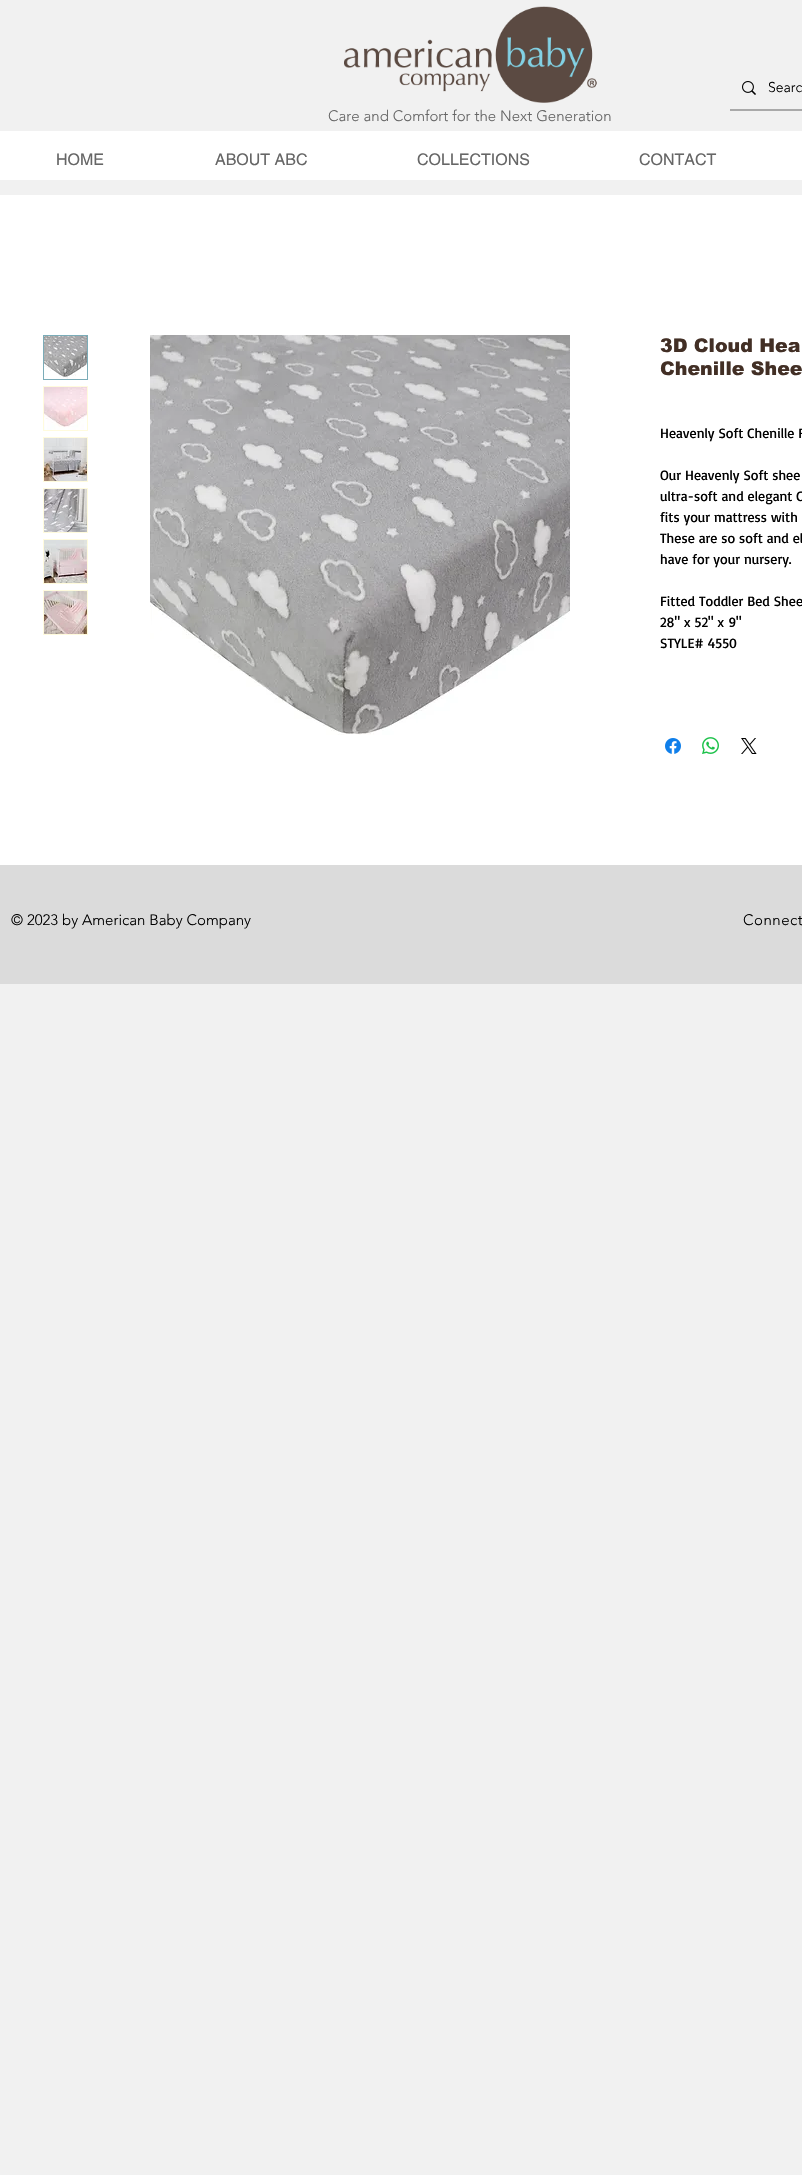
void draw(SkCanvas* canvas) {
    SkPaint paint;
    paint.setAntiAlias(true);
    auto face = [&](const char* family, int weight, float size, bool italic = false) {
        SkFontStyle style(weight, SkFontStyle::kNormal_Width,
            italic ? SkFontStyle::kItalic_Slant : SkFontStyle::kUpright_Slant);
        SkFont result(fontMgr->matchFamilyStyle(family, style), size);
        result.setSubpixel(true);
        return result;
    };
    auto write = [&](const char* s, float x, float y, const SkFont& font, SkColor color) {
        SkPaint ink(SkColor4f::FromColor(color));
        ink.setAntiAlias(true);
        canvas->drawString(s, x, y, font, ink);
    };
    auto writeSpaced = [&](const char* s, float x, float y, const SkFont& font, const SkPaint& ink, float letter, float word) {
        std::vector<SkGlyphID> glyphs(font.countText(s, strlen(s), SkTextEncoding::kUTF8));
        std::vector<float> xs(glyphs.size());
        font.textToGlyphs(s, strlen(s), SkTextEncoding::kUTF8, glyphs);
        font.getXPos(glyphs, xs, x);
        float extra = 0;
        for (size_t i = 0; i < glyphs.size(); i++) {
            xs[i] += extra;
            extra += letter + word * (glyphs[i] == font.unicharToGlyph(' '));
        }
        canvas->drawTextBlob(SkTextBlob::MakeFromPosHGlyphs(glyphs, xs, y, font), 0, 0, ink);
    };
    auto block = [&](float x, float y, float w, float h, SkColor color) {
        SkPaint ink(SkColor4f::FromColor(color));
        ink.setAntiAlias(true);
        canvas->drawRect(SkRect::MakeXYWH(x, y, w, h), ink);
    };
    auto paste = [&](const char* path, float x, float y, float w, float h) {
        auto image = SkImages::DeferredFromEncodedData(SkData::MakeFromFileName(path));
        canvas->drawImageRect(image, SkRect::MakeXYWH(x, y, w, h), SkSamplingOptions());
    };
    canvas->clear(SkColorSetRGB(241, 241, 241));
    paste("pic1.png", 344, 6, 253, 97);
    block(730, 109, 72, 2, SkColorSetRGB(169, 169, 169));
    paste("pic2.png", 742, 81, 14, 14);
    auto kFont1 = face("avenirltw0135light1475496", 300, 14);
    write("Searc", 768, 92, kFont1, SK_ColorBLACK);
    auto kFont2 = face("avenirltw0135light1475496", 300, 15);
    write("Care and Comfort for the Next Generation", 328, 121, kFont2, SkColorSetRGB(102, 102, 102));
    block(0, 131, 802, 49, SK_ColorWHITE);
    auto kFont3 = face("helvetica", 400, 16);
    write("HOME", 56, 165, kFont3, SkColorSetRGB(102, 102, 102));
    write("ABOUT ABC", 215, 165, kFont3, SkColorSetRGB(102, 102, 102));
    write("COLLECTIONS", 417, 165, kFont3, SkColorSetRGB(102, 102, 102));
    write("CONTACT", 639, 165, kFont3, SkColorSetRGB(102, 102, 102));
    block(0, 195, 802, 670, SK_ColorWHITE);
    paint.setStyle(SkPaint::kStroke_Style);
    paint.setStrokeWidth(1);
    paint.setColor(SkColorSetRGB(123, 172, 184));
    canvas->drawRect(SkRect::MakeXYWH(43.5f, 335.5f, 44, 44), paint);
    paste("pic3.png", 44, 336, 43, 43);
    paint.setColor(SkColorSetRGB(255, 251, 221));
    canvas->drawRect(SkRect::MakeXYWH(43.5f, 386.5f, 44, 44), paint);
    paste("pic4.png", 44, 387, 43, 43);
    canvas->drawRect(SkRect::MakeXYWH(43.5f, 437.5f, 44, 44), paint);
    paste("pic5.png", 44, 438, 43, 43);
    canvas->drawRect(SkRect::MakeXYWH(43.5f, 488.5f, 44, 44), paint);
    paste("pic6.png", 44, 489, 43, 43);
    canvas->drawRect(SkRect::MakeXYWH(43.5f, 539.5f, 44, 44), paint);
    paste("pic7.png", 44, 540, 43, 43);
    canvas->drawRect(SkRect::MakeXYWH(43.5f, 590.5f, 44, 44), paint);
    paste("pic8.png", 44, 591, 43, 43);
    paste("pic9.png", 150, 335, 420, 400);
    auto kFont4 = face("arial", 900, 19);
    write("3D Cloud Hea", 660, 352, kFont4, SkColorSetRGB(66, 47, 37));
    write("Chenille Shee", 660, 375, kFont4, SkColorSetRGB(66, 47, 37));
    auto kFont5 = face("Basic", 400, 14);
    write("Heavenly Soft Chenille F", 660, 438, kFont5, SK_ColorBLACK);
    write("Our Heavenly Soft shee", 660, 480, kFont5, SK_ColorBLACK);
    write("ultra-soft and elegant C", 660, 501, kFont5, SK_ColorBLACK);
    write("fits your mattress with", 660, 522, kFont5, SK_ColorBLACK);
    write("These are so soft and el", 660, 543, kFont5, SK_ColorBLACK);
    write("have for your nursery.", 660, 564, kFont5, SK_ColorBLACK);
    write("Fitted Toddler Bed Shee", 660, 606, kFont5, SK_ColorBLACK);
    write("28\" x 52\" x 9\"", 660, 627, kFont5, SK_ColorBLACK);
    write("STYLE# 4550", 660, 648, kFont5, SK_ColorBLACK);
    paste("pic10.png", 665, 738, 16, 16);
    paste("pic11.png", 702, 737, 17, 17);
    paste("pic12.png", 741, 738, 16, 16);
    block(0, 865, 802, 119, SkColorSetRGB(219, 219, 219));
    write("© 2023 by American Baby Company", 11, 925, kFont2, SK_ColorBLACK);
    paint.setStyle(SkPaint::kFill_Style);
    paint.setColor(SK_ColorBLACK);
    writeSpaced("Connect", 743, 925, kFont2, paint, 0.5f, 0);
}
